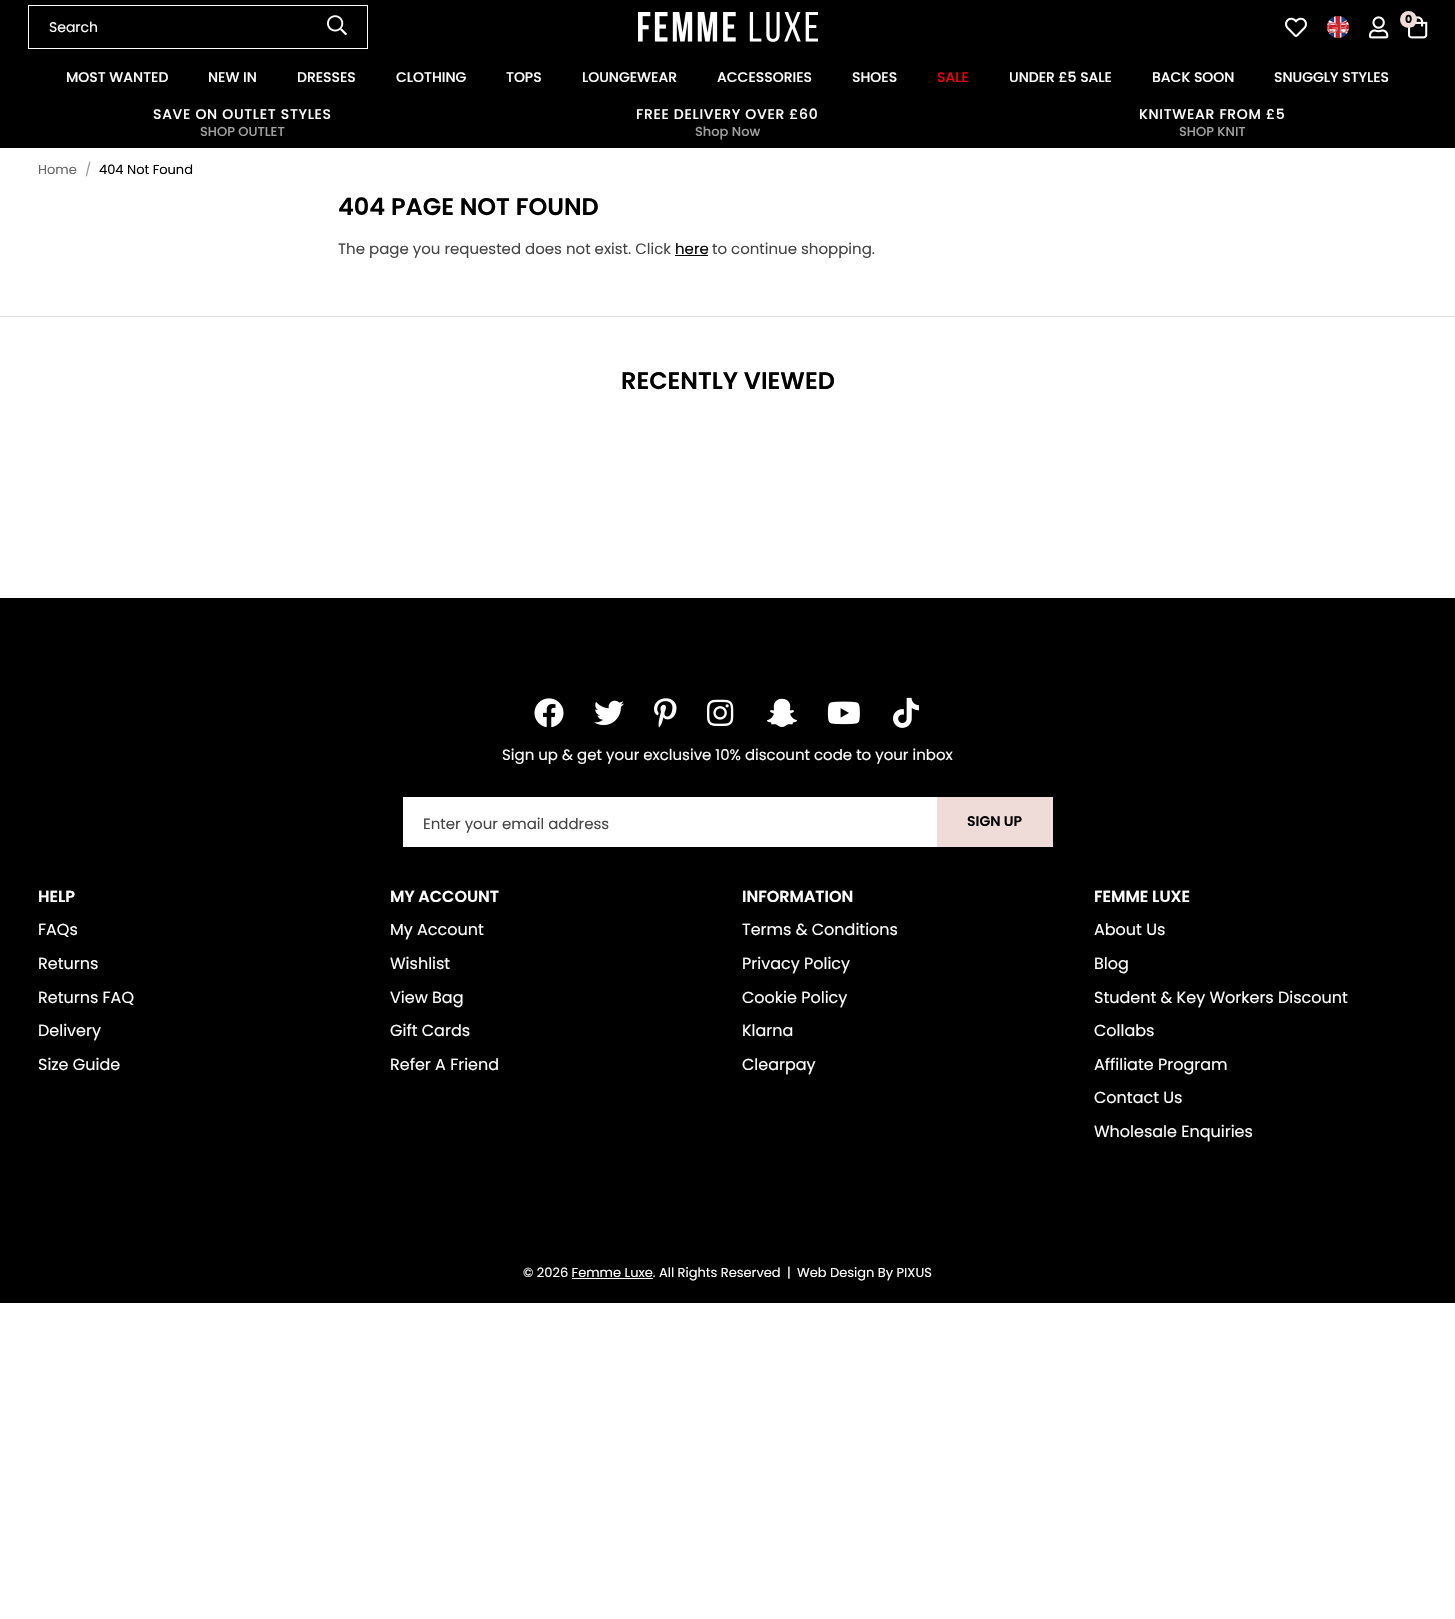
void draw(SkCanvas* canvas) {
    SkPaint paint;
    paint.setAntiAlias(true);
    auto face = [&](const char* family, int weight, float size, bool italic = false) {
        SkFontStyle style(weight, SkFontStyle::kNormal_Width,
            italic ? SkFontStyle::kItalic_Slant : SkFontStyle::kUpright_Slant);
        SkFont result(fontMgr->matchFamilyStyle(family, style), size);
        result.setSubpixel(true);
        return result;
    };
    auto write = [&](const char* s, float x, float y, const SkFont& font, SkColor color) {
        SkPaint ink(SkColor4f::FromColor(color));
        ink.setAntiAlias(true);
        canvas->drawString(s, x, y, font, ink);
    };
    auto writeSpaced = [&](const char* s, float x, float y, const SkFont& font, const SkPaint& ink, float letter, float word) {
        std::vector<SkGlyphID> glyphs(font.countText(s, strlen(s), SkTextEncoding::kUTF8));
        std::vector<float> xs(glyphs.size());
        font.textToGlyphs(s, strlen(s), SkTextEncoding::kUTF8, glyphs);
        font.getXPos(glyphs, xs, x);
        float extra = 0;
        for (size_t i = 0; i < glyphs.size(); i++) {
            xs[i] += extra;
            extra += letter + word * (glyphs[i] == font.unicharToGlyph(' '));
        }
        canvas->drawTextBlob(SkTextBlob::MakeFromPosHGlyphs(glyphs, xs, y, font), 0, 0, ink);
    };
    auto block = [&](float x, float y, float w, float h, SkColor color) {
        SkPaint ink(SkColor4f::FromColor(color));
        ink.setAntiAlias(true);
        canvas->drawRect(SkRect::MakeXYWH(x, y, w, h), ink);
    };
    auto paste = [&](const char* path, float x, float y, float w, float h) {
        auto image = SkImages::DeferredFromEncodedData(SkData::MakeFromFileName(path));
        canvas->drawImageRect(image, SkRect::MakeXYWH(x, y, w, h), SkSamplingOptions());
    };
    canvas->clear(SK_ColorWHITE);
    block(0, 0, 1455, 148, SK_ColorBLACK);
    paint.setStyle(SkPaint::kStroke_Style);
    paint.setStrokeWidth(1);
    paint.setColor(SK_ColorWHITE);
    canvas->drawRect(SkRect::MakeXYWH(28.5f, 5.5f, 339, 43), paint);
    auto kFont1 = face("Poppins", 400, 14);
    write("Search", 49, 32, kFont1, SK_ColorWHITE);
    paste("pic1.png", 327, 15, 20, 21);
    paste("pic2.png", 638, 12, 180, 30);
    paste("pic3.png", 1285, 17, 22, 20);
    paste("pic4.png", 1327, 16, 22, 22);
    auto kFont2 = face("Poppins", 400, 15);
    write("GB", 1327, 33, kFont2, SkColorSetRGB(206, 111, 119));
    paste("pic5.png", 1369, 16, 20, 23);
    paste("pic6.png", 1408, 16, 20, 23);
    paint.setStyle(SkPaint::kFill_Style);
    paint.setColor(SkColorSetRGB(239, 219, 215));
    canvas->drawCircle(1408.5f, 19.5f, 8.5f, paint);
    auto kFont3 = face("Poppins", 700, 11);
    write("0", 1405, 23, kFont3, SK_ColorBLACK);
    auto kFont4 = face("Poppins", 500, 14);
    write("MOST WANTED", 66, 82, kFont4, SK_ColorWHITE);
    write("NEW IN", 208, 82, kFont4, SK_ColorWHITE);
    write("DRESSES", 297, 82, kFont4, SK_ColorWHITE);
    write("CLOTHING", 396, 82, kFont4, SK_ColorWHITE);
    write("TOPS", 506, 82, kFont4, SK_ColorWHITE);
    write("LOUNGEWEAR", 582, 82, kFont4, SK_ColorWHITE);
    write("ACCESSORIES", 717, 82, kFont4, SK_ColorWHITE);
    write("SHOES", 852, 82, kFont4, SK_ColorWHITE);
    write("SALE", 937, 82, kFont4, SkColorSetRGB(238, 0, 0));
    write("UNDER £5 SALE", 1009, 82, kFont4, SK_ColorWHITE);
    write("BACK SOON", 1152, 82, kFont4, SK_ColorWHITE);
    write("SNUGGLY STYLES", 1274, 82, kFont4, SK_ColorWHITE);
    paint.setColor(SK_ColorWHITE);
    writeSpaced("SAVE ON OUTLET STYLES", 153, 119, kFont4, paint, 0.7f, 0);
    auto kFont5 = face("Poppins", 500, 13);
    write("SHOP OUTLET", 200, 136, kFont5, SkColorSetRGB(161, 161, 161));
    writeSpaced("FREE DELIVERY OVER £60", 636, 119, kFont4, paint, 0.7f, 0);
    write("Shop Now", 695, 136, kFont5, SkColorSetRGB(161, 161, 161));
    writeSpaced("KNITWEAR FROM £5", 1139, 119, kFont4, paint, 0.7f, 0);
    write("SHOP KNIT", 1179, 136, kFont5, SkColorSetRGB(161, 161, 161));
    auto kFont6 = face("Poppins", 400, 13);
    write("Home", 38, 174, kFont6, SkColorSetRGB(102, 102, 102));
    write("/", 85, 174, kFont6, SkColorSetRGB(153, 153, 153));
    write("404 Not Found", 99, 174, kFont6, SK_ColorBLACK);
    auto kFont7 = face("Poppins", 600, 24);
    write("404 PAGE NOT FOUND", 338, 215, kFont7, SK_ColorBLACK);
    write("The page you requested does not exist. Click", 338, 254, kFont2, SkColorSetRGB(68, 68, 68));
    write("here", 675, 254, kFont2, SK_ColorBLACK);
    block(675, 255, 33, 1, SK_ColorBLACK);
    write("to continue shopping.", 712, 254, kFont2, SkColorSetRGB(68, 68, 68));
    block(0, 316, 1455, 1, SkColorSetRGB(221, 221, 221));
    write("RECENTLY VIEWED", 621, 389, kFont7, SK_ColorBLACK);
    block(0, 598, 1455, 705, SK_ColorBLACK);
    paste("pic7.png", 534, 698, 30, 30);
    paste("pic8.png", 594, 700, 30, 26);
    paste("pic9.png", 654, 698, 23, 30);
    paste("pic10.png", 707, 699, 27, 27);
    paste("pic11.png", 767, 698, 30, 29);
    paste("pic12.png", 827, 701, 33, 24);
    paste("pic13.png", 893, 697, 27, 31);
    write("Sign up & get your exclusive 10% discount code to your inbox", 502, 760, kFont2, SK_ColorWHITE);
    block(403, 797, 534, 50, SK_ColorWHITE);
    write("Enter your email address", 423, 829, kFont2, SkColorSetRGB(68, 68, 68));
    block(937, 797, 116, 50, SkColorSetRGB(239, 219, 215));
    auto kFont8 = face("Poppins", 600, 14);
    write("SIGN UP", 967, 826, kFont8, SK_ColorBLACK);
    auto kFont9 = face("Poppins", 600, 16);
    write("HELP", 38, 902, kFont9, SK_ColorWHITE);
    auto kFont10 = face("Poppins", 400, 16);
    write("FAQs", 38, 935, kFont10, SK_ColorWHITE);
    write("Returns", 38, 969, kFont10, SK_ColorWHITE);
    write("Returns FAQ", 38, 1003, kFont10, SK_ColorWHITE);
    write("Delivery", 38, 1036, kFont10, SK_ColorWHITE);
    write("Size Guide", 38, 1070, kFont10, SK_ColorWHITE);
    write("MY ACCOUNT", 390, 902, kFont9, SK_ColorWHITE);
    write("My Account", 390, 935, kFont10, SK_ColorWHITE);
    write("Wishlist", 390, 969, kFont10, SK_ColorWHITE);
    write("View Bag", 390, 1003, kFont10, SK_ColorWHITE);
    write("Gift Cards", 390, 1036, kFont10, SK_ColorWHITE);
    write("Refer A Friend", 390, 1070, kFont10, SK_ColorWHITE);
    write("INFORMATION", 742, 902, kFont9, SK_ColorWHITE);
    write("Terms & Conditions", 742, 935, kFont10, SK_ColorWHITE);
    write("Privacy Policy", 742, 969, kFont10, SK_ColorWHITE);
    write("Cookie Policy", 742, 1003, kFont10, SK_ColorWHITE);
    write("Klarna", 742, 1036, kFont10, SK_ColorWHITE);
    write("Clearpay", 742, 1070, kFont10, SK_ColorWHITE);
    write("FEMME LUXE", 1094, 902, kFont9, SK_ColorWHITE);
    write("About Us", 1094, 935, kFont10, SK_ColorWHITE);
    write("Blog", 1094, 969, kFont10, SK_ColorWHITE);
    write("Student & Key Workers Discount", 1094, 1003, kFont10, SK_ColorWHITE);
    write("Collabs", 1094, 1036, kFont10, SK_ColorWHITE);
    write("Affiliate Program", 1094, 1070, kFont10, SK_ColorWHITE);
    write("Contact Us", 1094, 1103, kFont10, SK_ColorWHITE);
    write("Wholesale Enquiries", 1094, 1137, kFont10, SK_ColorWHITE);
    write("© 2026 Femme Luxe. All Rights Reserved", 523, 1277, kFont6, SK_ColorWHITE);
    block(572, 1278, 81, 1, SK_ColorWHITE);
    write("|", 787, 1277, kFont6, SK_ColorWHITE);
    write("Web Design By PIXUS", 797, 1277, kFont6, SK_ColorWHITE);
}
